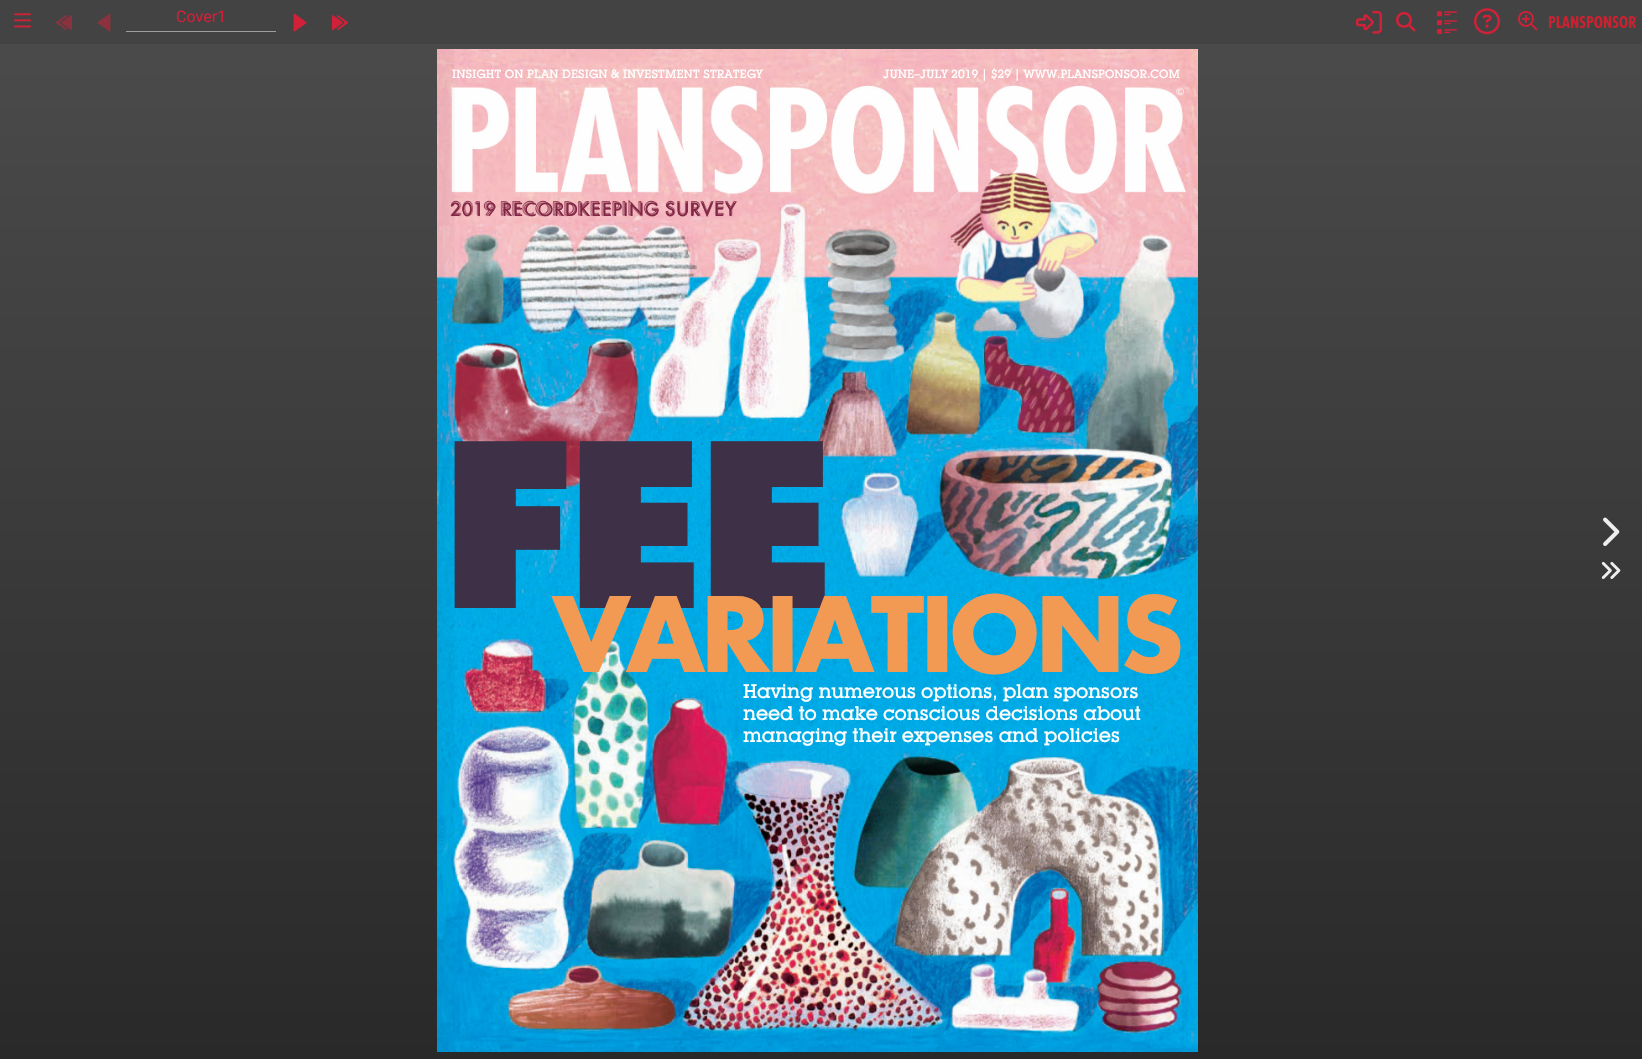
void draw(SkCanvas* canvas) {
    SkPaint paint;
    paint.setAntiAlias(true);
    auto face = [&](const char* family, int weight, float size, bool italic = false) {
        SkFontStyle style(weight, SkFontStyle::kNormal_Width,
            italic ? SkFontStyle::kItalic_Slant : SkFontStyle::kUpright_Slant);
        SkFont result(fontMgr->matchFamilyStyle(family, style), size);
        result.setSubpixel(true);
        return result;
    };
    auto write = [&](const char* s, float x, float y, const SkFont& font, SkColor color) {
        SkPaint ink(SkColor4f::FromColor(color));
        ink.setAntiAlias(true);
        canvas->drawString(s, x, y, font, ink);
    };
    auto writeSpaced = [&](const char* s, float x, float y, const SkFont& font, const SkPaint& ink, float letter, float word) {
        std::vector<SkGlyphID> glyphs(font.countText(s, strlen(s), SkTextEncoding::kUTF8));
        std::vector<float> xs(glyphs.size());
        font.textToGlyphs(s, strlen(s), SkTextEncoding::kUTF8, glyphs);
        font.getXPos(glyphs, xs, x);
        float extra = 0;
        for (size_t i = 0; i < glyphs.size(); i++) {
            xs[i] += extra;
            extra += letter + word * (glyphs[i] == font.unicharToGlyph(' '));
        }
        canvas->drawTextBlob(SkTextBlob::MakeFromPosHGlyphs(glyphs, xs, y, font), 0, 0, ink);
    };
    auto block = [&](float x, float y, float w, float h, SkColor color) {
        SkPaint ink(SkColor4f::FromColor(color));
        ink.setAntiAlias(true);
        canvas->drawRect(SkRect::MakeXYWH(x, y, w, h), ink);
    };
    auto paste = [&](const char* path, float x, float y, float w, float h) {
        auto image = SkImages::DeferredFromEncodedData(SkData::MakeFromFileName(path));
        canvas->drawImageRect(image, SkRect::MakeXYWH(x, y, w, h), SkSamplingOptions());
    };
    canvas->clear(SK_ColorWHITE);
    {
        const SkColor colors[] = {SkColorSetRGB(76, 76, 76), SkColorSetRGB(41, 41, 41)};
        const float stops[] = {0, 1};
        const SkPoint ends[] = {{821, 0}, {821, 1059}};
        paint.setShader(SkGradientShader::MakeLinear(ends, colors, stops, 2, SkTileMode::kClamp));
        paint.setAlpha(255);
    }
    canvas->drawRect(SkRect::MakeXYWH(0, 44, 1642, 1015), paint);
    block(0, 0, 1642, 44, SkColorSetRGB(67, 67, 67));
    paste("pic1.png", 14, 13, 17, 15);
    paste("pic2.png", 55, 15, 17, 16);
    paste("pic3.png", 97, 13, 14, 19);
    block(126, 31, 150, 1, SkColorSetRGB(158, 158, 158));
    auto kFont1 = face("Roboto", 400, 16);
    write("Cover1", 176, 22, kFont1, SkColorSetRGB(210, 32, 56));
    paste("pic4.png", 293, 13, 14, 19);
    paste("pic5.png", 331, 15, 18, 16);
    paste("pic6.png", 1356, 10, 26, 24);
    paste("pic7.png", 1396, 12, 20, 20);
    paste("pic8.png", 1436, 11, 21, 23);
    paste("pic9.png", 1474, 8, 26, 27);
    paste("pic10.png", 1518, 11, 20, 20);
    paste("pic11.png", 1549, 16, 88, 12);
    paste("pic12.png", 437, 49, 761, 1003);
    {
        const SkColor colors[] = {SkColorSetARGB(0, 0, 0, 0), SkColorSetARGB(10, 0, 0, 0)};
        const float stops[] = {0.95f, 1};
        const SkPoint ends[] = {{1198, 552}, {437, 552}};
        paint.setShader(SkGradientShader::MakeLinear(ends, colors, stops, 2, SkTileMode::kClamp));
        paint.setAlpha(255);
    }
    canvas->drawRect(SkRect::MakeXYWH(437, 49, 18, 1003), paint);
    auto kFont2 = face("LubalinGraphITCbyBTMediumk", 500, 11.75f);
    paint.setShader(nullptr);
    paint.setColor(SK_ColorWHITE);
    writeSpaced("INSIGHT ON PLAN DESIGN & INVESTMENT STRATEGY", 452, 78, kFont2, paint, 0.1f, 0);
    write("JUNE–JULY 2019 | $29 | WWW.PLANSPONSOR.COM", 883, 78, kFont2, SK_ColorWHITE);
    auto kFont3 = face("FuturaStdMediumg", 500, 17.6f);
    paint.setColor(SkColorSetRGB(129, 38, 68));
    writeSpaced("2019 RECORDKEEPING SURVEY", 450, 216, kFont3, paint, 1.75f, -2);
    auto kFont4 = face("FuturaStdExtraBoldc", 800, 221);
    paint.setColor(SkColorSetRGB(62, 48, 71));
    writeSpaced("FEE", 441, 608, kFont4, paint, -7, 0);
    auto kFont5 = face("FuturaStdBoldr", 700, 100.75f);
    paint.setColor(SkColorSetRGB(242, 154, 84));
    writeSpaced("VARIATIONS", 553, 672, kFont5, paint, -3.5f, 0);
    auto kFont6 = face("LubalinGraphITCbyBTMediumk", 500, 19.3f);
    paint.setColor(SK_ColorWHITE);
    writeSpaced("Having numerous options, plan sponsors", 743, 698, kFont6, paint, -0.25f, 0);
    writeSpaced("need to make conscious decisions about", 743, 720, kFont6, paint, -0.2f, 0);
    writeSpaced("managing their expenses and policies", 743, 742, kFont6, paint, -0.2f, 0);
    paste("pic13.png", 1603, 517, 17, 29);
    paste("pic14.png", 1601, 561, 20, 18);
}
